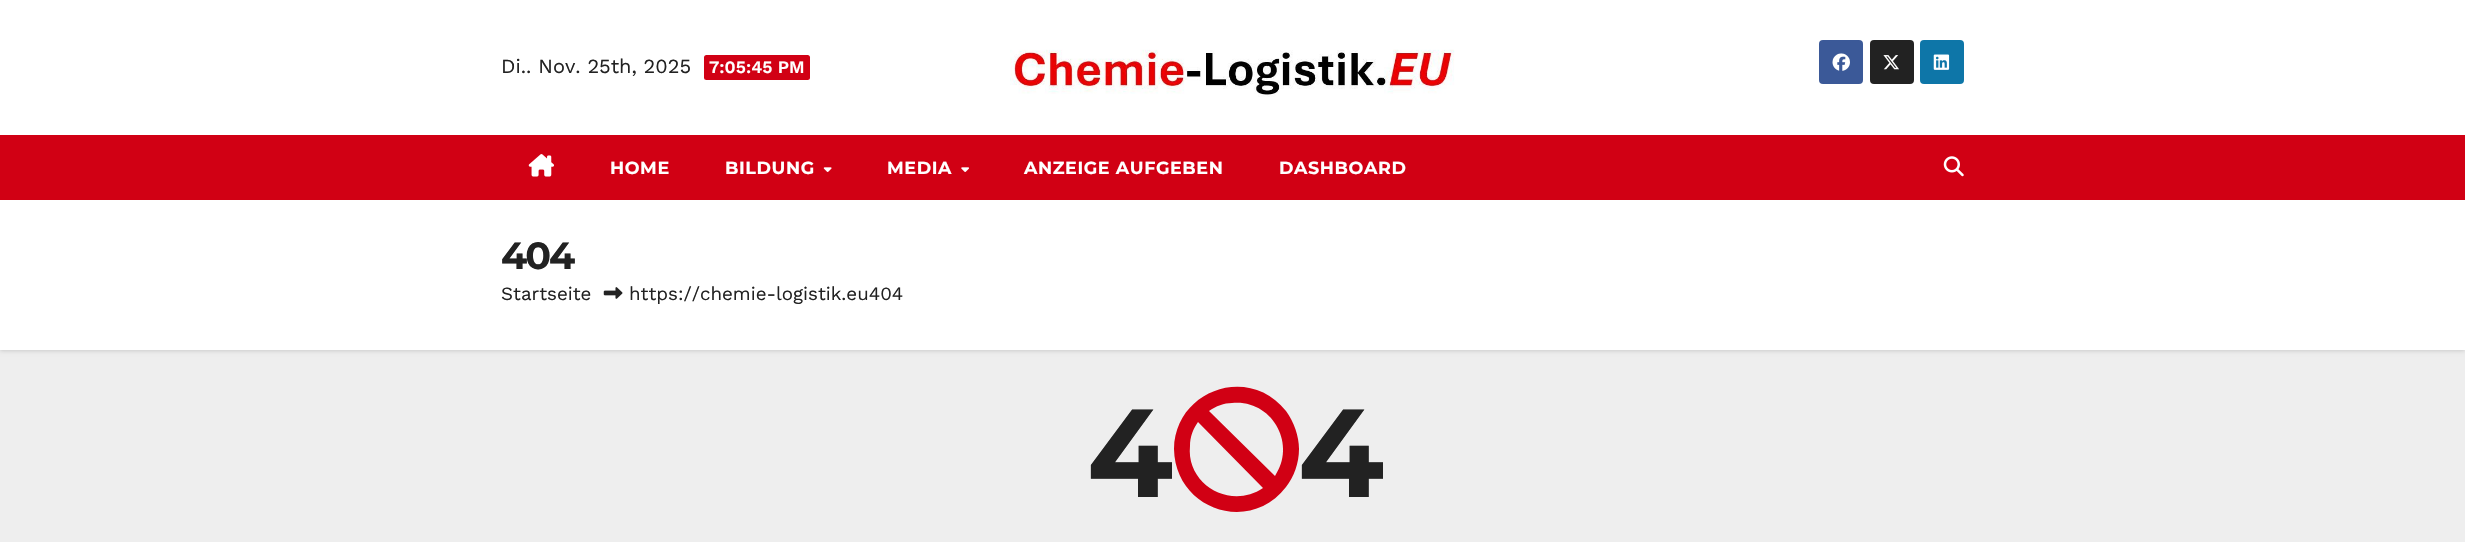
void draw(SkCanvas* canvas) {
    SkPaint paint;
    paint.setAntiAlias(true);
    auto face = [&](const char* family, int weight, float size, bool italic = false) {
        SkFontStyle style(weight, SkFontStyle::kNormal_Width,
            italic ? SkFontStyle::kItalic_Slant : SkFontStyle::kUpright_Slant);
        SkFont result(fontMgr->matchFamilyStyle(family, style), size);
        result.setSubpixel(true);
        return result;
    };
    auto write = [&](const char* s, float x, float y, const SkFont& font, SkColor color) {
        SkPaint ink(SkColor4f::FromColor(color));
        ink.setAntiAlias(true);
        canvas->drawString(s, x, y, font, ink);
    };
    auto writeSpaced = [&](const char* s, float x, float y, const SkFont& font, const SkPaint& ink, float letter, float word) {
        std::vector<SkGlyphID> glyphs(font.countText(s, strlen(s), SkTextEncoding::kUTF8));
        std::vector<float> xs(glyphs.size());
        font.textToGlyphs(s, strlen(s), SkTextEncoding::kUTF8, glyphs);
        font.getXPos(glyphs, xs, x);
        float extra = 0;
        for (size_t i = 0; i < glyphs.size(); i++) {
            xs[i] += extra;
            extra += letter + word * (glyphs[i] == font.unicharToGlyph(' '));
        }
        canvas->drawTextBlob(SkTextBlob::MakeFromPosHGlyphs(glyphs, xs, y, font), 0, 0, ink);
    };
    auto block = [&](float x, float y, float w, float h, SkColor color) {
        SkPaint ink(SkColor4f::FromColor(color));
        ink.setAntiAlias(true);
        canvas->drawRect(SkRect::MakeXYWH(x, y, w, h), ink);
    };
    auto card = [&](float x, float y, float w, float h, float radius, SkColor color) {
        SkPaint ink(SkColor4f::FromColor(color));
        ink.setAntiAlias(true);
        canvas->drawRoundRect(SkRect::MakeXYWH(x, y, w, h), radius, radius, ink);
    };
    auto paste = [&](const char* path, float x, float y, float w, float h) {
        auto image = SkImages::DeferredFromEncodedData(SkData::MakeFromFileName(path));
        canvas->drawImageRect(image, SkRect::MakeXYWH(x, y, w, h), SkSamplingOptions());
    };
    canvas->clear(SkColorSetRGB(238, 238, 238));
    block(0, 0, 2465, 135, SK_ColorWHITE);
    auto kFont1 = face("Work Sans", 400, 20);
    write("Di.. Nov. 25th, 2025", 501, 73, kFont1, SkColorSetRGB(34, 34, 34));
    card(704, 55, 106, 25, 2.5f, SkColorSetRGB(209, 0, 20));
    auto kFont2 = face("Work Sans", 600, 17.5f);
    write("7:05:45 PM", 709, 73, kFont2, SK_ColorWHITE);
    paste("pic1.png", 1010, 49, 445, 48);
    card(1819, 40, 44, 44, 4, SkColorSetRGB(59, 89, 152));
    paste("pic2.png", 1832, 53, 18, 18);
    card(1870, 40, 44, 44, 4, SkColorSetRGB(34, 34, 34));
    paste("pic3.png", 1883, 55, 16, 15);
    card(1920, 40, 44, 44, 4, SkColorSetRGB(14, 118, 168));
    paste("pic4.png", 1933, 54, 17, 16);
    paint.setColor(SkColorSetARGB(38, 0, 0, 0));
    paint.setMaskFilter(SkMaskFilter::MakeBlur(kNormal_SkBlurStyle, 2));
    canvas->drawRect(SkRect::MakeXYWH(0, 201, 2465, 150), paint);
    paint.setMaskFilter(nullptr);
    block(0, 135, 2465, 65, SkColorSetRGB(209, 0, 20));
    paste("pic5.png", 528, 154, 26, 23);
    auto kFont3 = face("Montserrat", 700, 17.5f);
    paint.setColor(SK_ColorWHITE);
    writeSpaced("HOME", 610, 174, kFont3, paint, 0.6f, 0);
    writeSpaced("BILDUNG", 725, 174, kFont3, paint, 0.6f, 0);
    paste("pic6.png", 823, 167, 9, 5);
    writeSpaced("MEDIA", 887, 174, kFont3, paint, 0.6f, 0);
    paste("pic7.png", 961, 167, 8, 5);
    writeSpaced("ANZEIGE AUFGEBEN", 1024, 174, kFont3, paint, 0.6f, 0);
    writeSpaced("DASHBOARD", 1279, 174, kFont3, paint, 0.6f, 0);
    paste("pic8.png", 1943, 156, 21, 21);
    block(0, 200, 2465, 150, SK_ColorWHITE);
    auto kFont4 = face("Montserrat", 700, 38);
    paint.setColor(SkColorSetRGB(34, 34, 34));
    writeSpaced("404", 501, 269, kFont4, paint, -2, 0);
    auto kFont5 = face("Work Sans", 400, 18.75f);
    write("Startseite", 501, 300, kFont5, SkColorSetRGB(34, 34, 34));
    paste("pic9.png", 603, 287, 20, 12);
    write("https://chemie-logistik.eu404", 629, 300, kFont5, SkColorSetRGB(34, 34, 34));
    auto kFont6 = face("Montserrat", 700, 125);
    writeSpaced("4", 1087, 497, kFont6, paint, -6, 0);
    paint.setColor(SkColorSetRGB(209, 0, 20));
    canvas->drawPath(SkPathBuilder().moveTo(1263, 488).lineTo(1198, 422).cubicTo(1193, 429, 1190, 437, 1190, 446).cubicTo(1186, 485, 1231, 510, 1263, 488).close().moveTo(1275, 476).cubicTo(1297, 444, 1272, 399, 1232, 403).cubicTo(1224, 403, 1216, 406, 1209, 411).close().moveTo(1174, 449).cubicTo(1175, 390, 1249, 364, 1286, 411).cubicTo(1294, 422, 1299, 436, 1299, 449).cubicTo(1299, 463, 1294, 477, 1286, 487).cubicTo(1249, 535, 1175, 509, 1174, 449).close().detach(), paint);
    paint.setColor(SkColorSetRGB(34, 34, 34));
    writeSpaced("4", 1298, 497, kFont6, paint, -6, 0);
}
